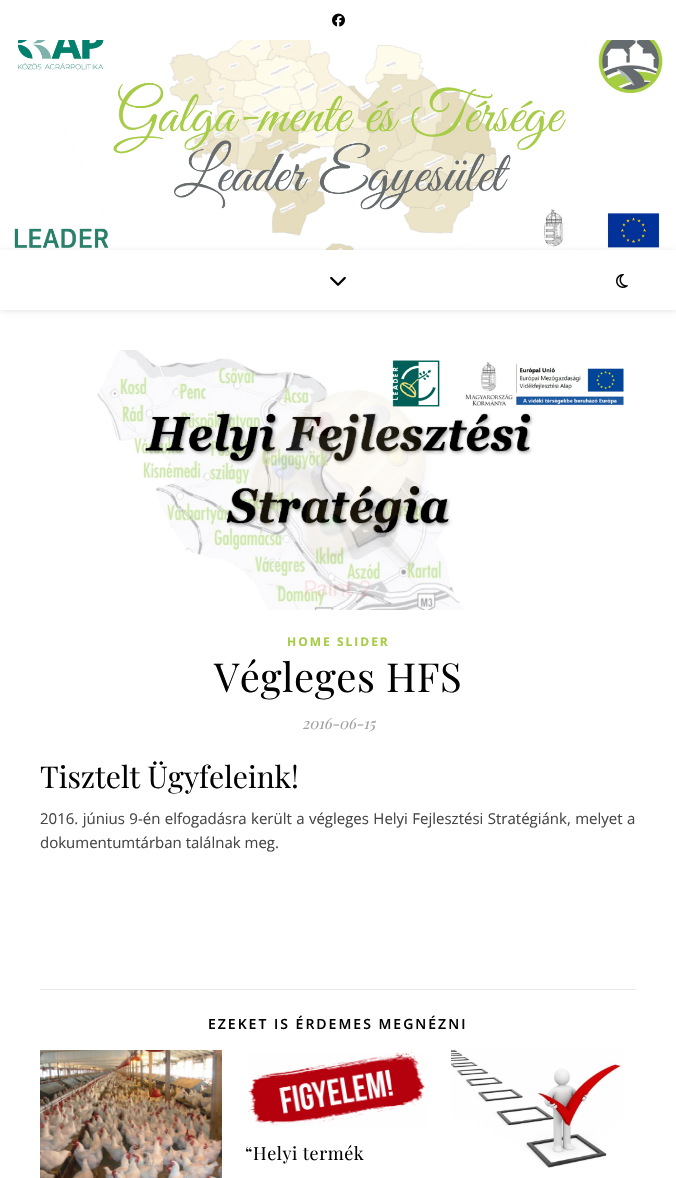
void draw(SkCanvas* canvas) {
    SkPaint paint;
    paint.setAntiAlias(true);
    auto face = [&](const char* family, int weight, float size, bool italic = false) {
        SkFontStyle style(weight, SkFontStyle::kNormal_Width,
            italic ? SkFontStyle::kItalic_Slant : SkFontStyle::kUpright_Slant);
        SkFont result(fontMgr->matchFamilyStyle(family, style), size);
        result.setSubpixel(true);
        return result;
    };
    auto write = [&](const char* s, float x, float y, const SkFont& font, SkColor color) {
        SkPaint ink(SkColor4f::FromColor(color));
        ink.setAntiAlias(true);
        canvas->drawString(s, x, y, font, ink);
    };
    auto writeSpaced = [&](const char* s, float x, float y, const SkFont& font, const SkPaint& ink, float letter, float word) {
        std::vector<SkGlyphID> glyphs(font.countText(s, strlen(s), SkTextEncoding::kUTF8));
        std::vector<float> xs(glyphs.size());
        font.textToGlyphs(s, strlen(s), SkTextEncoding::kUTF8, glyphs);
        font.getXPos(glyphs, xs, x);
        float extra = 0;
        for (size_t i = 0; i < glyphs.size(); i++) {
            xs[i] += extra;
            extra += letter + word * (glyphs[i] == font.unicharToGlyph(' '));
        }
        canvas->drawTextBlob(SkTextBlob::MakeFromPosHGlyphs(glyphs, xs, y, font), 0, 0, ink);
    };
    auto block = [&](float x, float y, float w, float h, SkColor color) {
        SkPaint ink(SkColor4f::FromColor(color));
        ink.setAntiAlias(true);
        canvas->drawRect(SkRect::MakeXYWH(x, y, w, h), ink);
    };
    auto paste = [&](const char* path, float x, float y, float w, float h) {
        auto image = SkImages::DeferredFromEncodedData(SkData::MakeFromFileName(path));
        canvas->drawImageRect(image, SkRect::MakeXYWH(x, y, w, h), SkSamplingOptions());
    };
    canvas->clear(SK_ColorWHITE);
    paste("pic1.png", 332, 13, 13, 14);
    paste("pic2.png", 14, 40, 650, 210);
    canvas->save();
    canvas->clipPath(SkPathBuilder(SkPathFillType::kEvenOdd).moveTo(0, 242).lineTo(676, 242).lineTo(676, 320).lineTo(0, 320).close().moveTo(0, 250).lineTo(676, 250).lineTo(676, 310).lineTo(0, 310).close().detach(), true);
    paint.setColor(SkColorSetARGB(26, 0, 0, 0));
    paint.setMaskFilter(SkMaskFilter::MakeBlur(kNormal_SkBlurStyle, 2.5f));
    canvas->drawRect(SkRect::MakeXYWH(0, 251, 676, 60), paint);
    paint.setMaskFilter(nullptr);
    canvas->restore();
    paste("pic3.png", 330, 276, 16, 10);
    paste("pic4.png", 616, 274, 12, 14);
    paste("pic5.png", 97, 350, 527, 260);
    auto kFont1 = face("Open Sans", 700, 12);
    paint.setColor(SkColorSetRGB(167, 204, 72));
    writeSpaced("HOME SLIDER", 287, 646, kFont1, paint, 2, 0);
    auto kFont2 = face("Playfair Display", 400, 40);
    paint.setColor(SkColorSetRGB(3, 3, 3));
    writeSpaced("Végleges HFS", 214, 692, kFont2, paint, 0.5f, 0);
    auto kFont3 = face("Playfair Display", 400, 15, true);
    write("2016-06-15", 302, 729, kFont3, SkColorSetRGB(161, 161, 161));
    auto kFont4 = face("Playfair Display", 400, 30);
    write("Tisztelt Ügyfeleink!", 40, 788, kFont4, SkColorSetRGB(3, 3, 3));
    auto kFont5 = face("Open Sans", 400, 15);
    paint.setColor(SkColorSetRGB(70, 70, 70));
    writeSpaced("2016. június 9-én elfogadásra került a végleges Helyi Fejlesztési Stratégiánk, melyet a", 40, 824, kFont5, paint, 0, 0.5f);
    write("dokumentumtárban találnak meg.", 40, 848, kFont5, SkColorSetRGB(70, 70, 70));
    block(40, 989, 596, 1, SkColorSetRGB(232, 232, 232));
    auto kFont6 = face("Open Sans", 600, 14);
    paint.setColor(SkColorSetRGB(3, 3, 3));
    writeSpaced("EZEKET IS ÉRDEMES MEGNÉZNI", 208, 1029, kFont6, paint, 2, 0);
    paste("pic6.png", 40, 1050, 182, 128);
    paste("pic7.png", 248, 1052, 178, 74);
    auto kFont7 = face("Playfair Display", 400, 18);
    writeSpaced("“Helyi termék", 245, 1160, kFont7, paint, 0.5f, 0);
    paste("pic8.png", 451, 1050, 173, 118);
}
